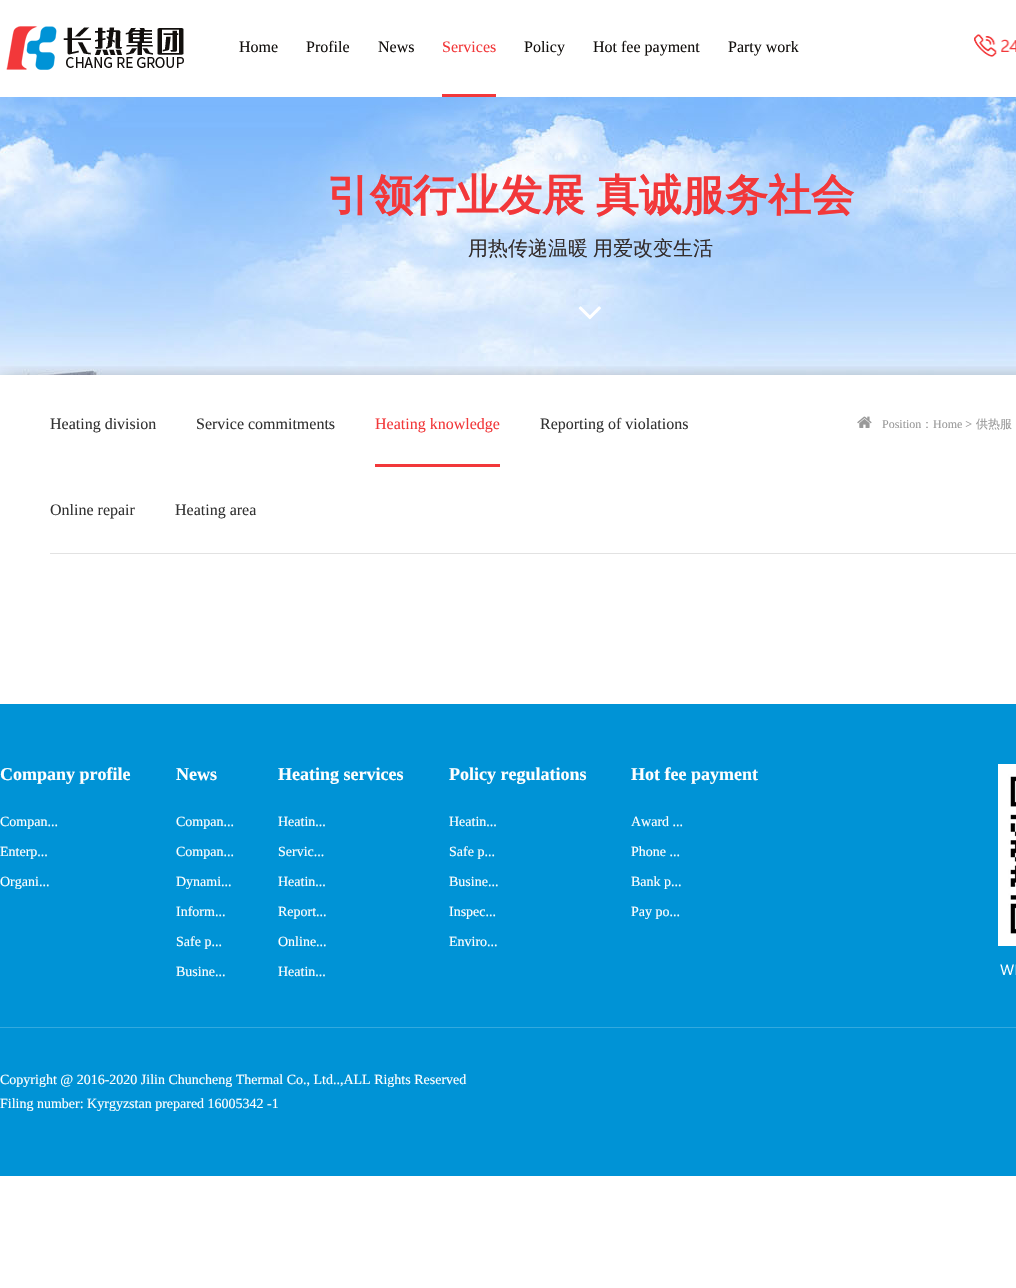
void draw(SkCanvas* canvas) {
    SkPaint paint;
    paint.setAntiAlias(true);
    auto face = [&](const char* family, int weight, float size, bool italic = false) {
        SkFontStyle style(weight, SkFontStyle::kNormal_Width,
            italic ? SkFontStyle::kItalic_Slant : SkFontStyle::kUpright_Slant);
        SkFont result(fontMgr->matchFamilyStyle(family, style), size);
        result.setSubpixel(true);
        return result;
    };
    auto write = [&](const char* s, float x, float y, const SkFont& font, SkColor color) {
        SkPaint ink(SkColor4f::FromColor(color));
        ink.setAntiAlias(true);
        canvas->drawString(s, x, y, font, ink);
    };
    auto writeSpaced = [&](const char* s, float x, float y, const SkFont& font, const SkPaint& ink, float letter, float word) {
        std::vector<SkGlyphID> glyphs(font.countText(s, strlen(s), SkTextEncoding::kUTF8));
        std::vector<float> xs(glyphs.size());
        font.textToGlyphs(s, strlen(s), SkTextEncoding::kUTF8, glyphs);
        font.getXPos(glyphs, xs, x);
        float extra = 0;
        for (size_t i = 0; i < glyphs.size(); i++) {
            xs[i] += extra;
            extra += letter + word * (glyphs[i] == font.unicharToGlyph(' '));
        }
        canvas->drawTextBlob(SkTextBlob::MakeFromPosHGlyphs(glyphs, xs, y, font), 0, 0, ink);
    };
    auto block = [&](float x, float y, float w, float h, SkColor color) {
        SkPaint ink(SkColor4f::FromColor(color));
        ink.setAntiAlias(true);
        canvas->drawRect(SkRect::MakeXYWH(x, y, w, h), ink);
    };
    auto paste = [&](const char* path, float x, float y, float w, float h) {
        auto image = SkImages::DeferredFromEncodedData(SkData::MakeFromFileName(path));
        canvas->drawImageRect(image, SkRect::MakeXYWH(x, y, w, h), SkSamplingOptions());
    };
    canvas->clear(SK_ColorWHITE);
    paste("pic1.png", 6, 26, 178, 44);
    auto kFont1 = face("Liberation Serif", 400, 16);
    write("Home", 239, 52, kFont1, SkColorSetRGB(18, 15, 13));
    write("Profile", 306, 52, kFont1, SkColorSetRGB(18, 15, 13));
    write("News", 378, 52, kFont1, SkColorSetRGB(18, 15, 13));
    block(442, 94, 54, 3, SkColorSetRGB(242, 56, 58));
    write("Services", 442, 52, kFont1, SkColorSetRGB(242, 56, 58));
    write("Policy", 524, 52, kFont1, SkColorSetRGB(18, 15, 13));
    write("Hot fee payment", 593, 52, kFont1, SkColorSetRGB(18, 15, 13));
    write("Party work", 728, 52, kFont1, SkColorSetRGB(18, 15, 13));
    paste("pic2.png", 974, 34, 42, 23);
    paste("pic3.png", 0, 97, 1016, 278);
    auto kFont2 = face("WenQuanYi Zen Hei", 700, 43);
    paint.setColor(SkColorSetRGB(242, 56, 58));
    writeSpaced("引领行业发展 真诚服务社会", 327, 210, kFont2, paint, 0, -2);
    auto kFont3 = face("WenQuanYi Zen Hei", 500, 20);
    write("用热传递温暖", 468, 255, kFont3, SkColorSetRGB(51, 44, 43));
    write("用爱改变生活", 593, 255, kFont3, SkColorSetRGB(51, 44, 43));
    paste("pic4.png", 578, 306, 23, 14);
    paste("pic5.png", 0, 366, 1016, 99);
    block(50, 553, 966, 1, SkColorSetRGB(226, 226, 226));
    write("Heating division", 50, 429, kFont1, SkColorSetRGB(51, 51, 51));
    write("Service commitments", 196, 429, kFont1, SkColorSetRGB(51, 51, 51));
    write("Heating knowledge", 375, 429, kFont1, SkColorSetRGB(242, 56, 58));
    block(375, 464, 125, 3, SkColorSetRGB(242, 56, 58));
    write("Reporting of violations", 540, 429, kFont1, SkColorSetRGB(51, 51, 51));
    write("Online repair", 50, 515, kFont1, SkColorSetRGB(51, 51, 51));
    write("Heating area", 175, 515, kFont1, SkColorSetRGB(51, 51, 51));
    paste("pic6.png", 857, 416, 15, 12);
    auto kFont4 = face("Liberation Serif", 400, 12);
    write("Position", 882, 428, kFont4, SkColorSetRGB(153, 153, 153));
    auto kFont5 = face("WenQuanYi Zen Hei", 500, 12);
    write("：", 921, 428, kFont5, SkColorSetRGB(153, 153, 153));
    write("Home >", 933, 428, kFont4, SkColorSetRGB(153, 153, 153));
    write("供热服", 976, 428, kFont5, SkColorSetRGB(153, 153, 153));
    block(0, 704, 1016, 472, SkColorSetRGB(0, 147, 214));
    block(0, 1027, 1016, 1, SkColorSetRGB(51, 169, 222));
    auto kFont6 = face("Liberation Serif", 700, 18);
    write("Company profile", 0, 780, kFont6, SK_ColorWHITE);
    auto kFont7 = face("Liberation Serif", 400, 14);
    write("Compan...", 0, 826, kFont7, SK_ColorWHITE);
    write("Enterp...", 0, 856, kFont7, SK_ColorWHITE);
    write("Organi...", 0, 886, kFont7, SK_ColorWHITE);
    write("News", 176, 780, kFont6, SK_ColorWHITE);
    write("Compan...", 176, 826, kFont7, SK_ColorWHITE);
    write("Compan...", 176, 856, kFont7, SK_ColorWHITE);
    write("Dynami...", 176, 886, kFont7, SK_ColorWHITE);
    write("Inform...", 176, 916, kFont7, SK_ColorWHITE);
    write("Safe p...", 176, 946, kFont7, SK_ColorWHITE);
    write("Busine...", 176, 976, kFont7, SK_ColorWHITE);
    write("Heating services", 278, 780, kFont6, SK_ColorWHITE);
    write("Heatin...", 278, 826, kFont7, SK_ColorWHITE);
    write("Servic...", 278, 856, kFont7, SK_ColorWHITE);
    write("Heatin...", 278, 886, kFont7, SK_ColorWHITE);
    write("Report...", 278, 916, kFont7, SK_ColorWHITE);
    write("Online...", 278, 946, kFont7, SK_ColorWHITE);
    write("Heatin...", 278, 976, kFont7, SK_ColorWHITE);
    write("Policy regulations", 449, 780, kFont6, SK_ColorWHITE);
    write("Heatin...", 449, 826, kFont7, SK_ColorWHITE);
    write("Safe p...", 449, 856, kFont7, SK_ColorWHITE);
    write("Busine...", 449, 886, kFont7, SK_ColorWHITE);
    write("Inspec...", 449, 916, kFont7, SK_ColorWHITE);
    write("Enviro...", 449, 946, kFont7, SK_ColorWHITE);
    write("Hot fee payment", 631, 780, kFont6, SK_ColorWHITE);
    write("Award ...", 631, 826, kFont7, SK_ColorWHITE);
    write("Phone ...", 631, 856, kFont7, SK_ColorWHITE);
    write("Bank p...", 631, 886, kFont7, SK_ColorWHITE);
    write("Pay po...", 631, 916, kFont7, SK_ColorWHITE);
    paste("pic7.png", 998, 764, 18, 211);
    write("Copyright @ 2016-2020 Jilin Chuncheng Thermal Co., Ltd..,ALL Rights Reserved", 0, 1084, kFont7, SK_ColorWHITE);
    write("Filing number: Kyrgyzstan prepared 16005342 -1", 0, 1108, kFont7, SK_ColorWHITE);
}
